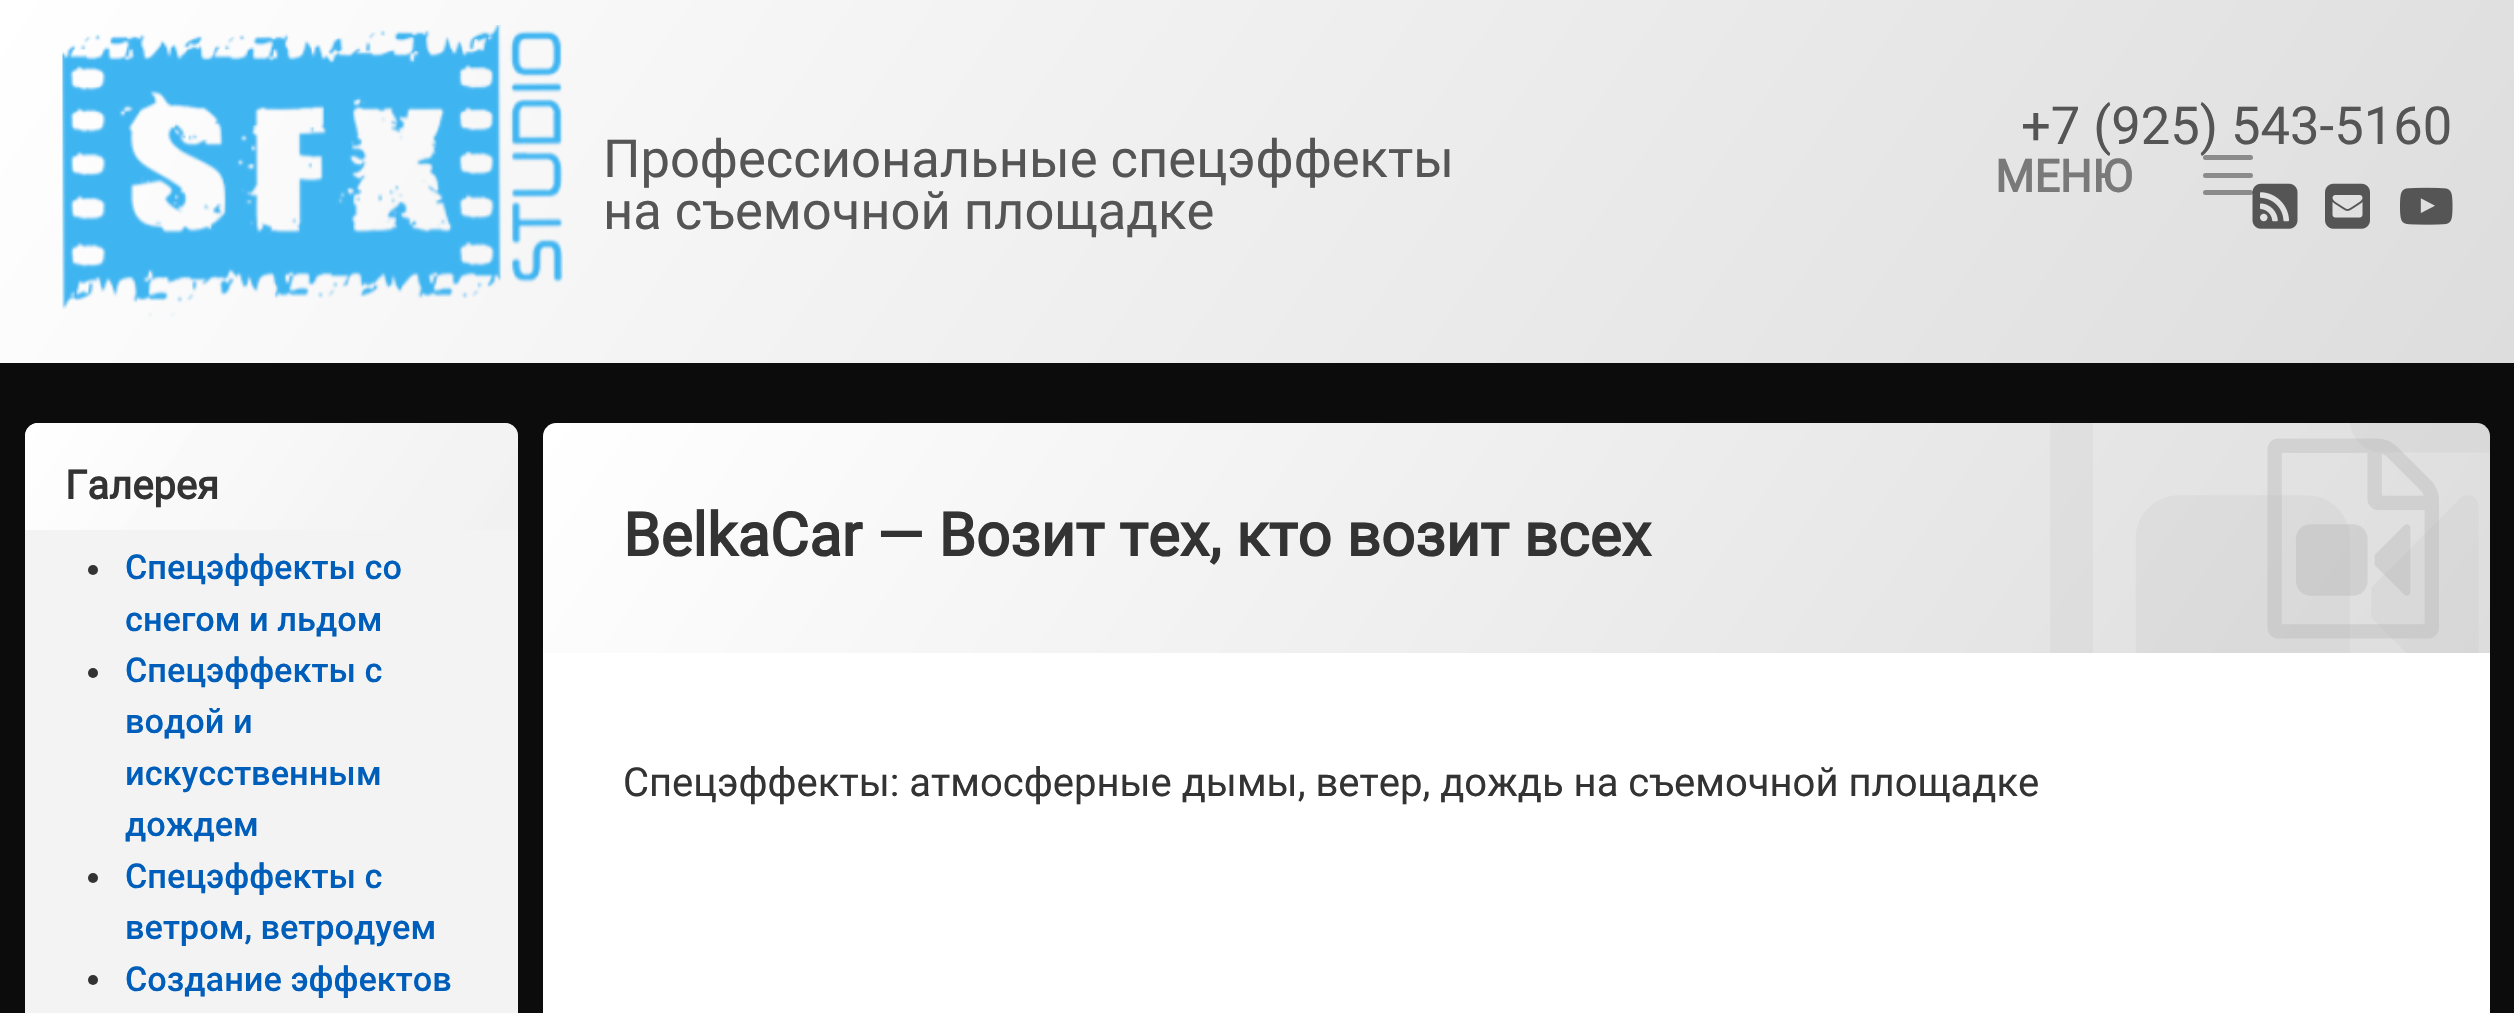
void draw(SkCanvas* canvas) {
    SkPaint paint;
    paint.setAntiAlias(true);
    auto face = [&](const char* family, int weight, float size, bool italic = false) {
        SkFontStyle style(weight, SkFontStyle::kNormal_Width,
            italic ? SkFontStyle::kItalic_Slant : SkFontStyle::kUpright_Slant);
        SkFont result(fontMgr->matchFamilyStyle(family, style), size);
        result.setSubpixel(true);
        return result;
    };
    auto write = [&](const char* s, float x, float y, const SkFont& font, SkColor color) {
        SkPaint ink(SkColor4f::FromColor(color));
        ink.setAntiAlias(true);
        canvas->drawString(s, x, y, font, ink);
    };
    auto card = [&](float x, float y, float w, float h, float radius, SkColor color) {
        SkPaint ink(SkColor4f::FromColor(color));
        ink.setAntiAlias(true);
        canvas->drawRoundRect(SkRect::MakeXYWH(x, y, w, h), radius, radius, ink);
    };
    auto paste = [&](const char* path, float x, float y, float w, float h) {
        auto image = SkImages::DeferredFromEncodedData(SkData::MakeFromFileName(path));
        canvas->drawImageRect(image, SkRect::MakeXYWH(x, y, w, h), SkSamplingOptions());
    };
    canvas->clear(SkColorSetRGB(12, 12, 12));
    {
        const SkColor colors[] = {SK_ColorWHITE, SkColorSetRGB(221, 221, 221)};
        const float stops[] = {0, 1};
        const SkPoint ends[] = {{329, -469}, {2186, 832}};
        paint.setShader(SkGradientShader::MakeLinear(ends, colors, stops, 2, SkTileMode::kClamp));
        paint.setAlpha(255);
    }
    canvas->drawRect(SkRect::MakeXYWH(0, 0, 2514, 363), paint);
    paste("pic1.png", 62, 25, 501, 292);
    auto kFont1 = face("Roboto", 400, 52.5f);
    write("Профессиональные спецэффекты", 603, 177, kFont1, SkColorSetRGB(85, 85, 85));
    write("на съемочной площадке", 603, 229, kFont1, SkColorSetRGB(85, 85, 85));
    write("+7 (925) 543-5160", 2021, 144, kFont1, SkColorSetRGB(85, 85, 85));
    auto kFont2 = face("Roboto", 700, 45);
    write("МЕНЮ", 1995, 192, kFont2, SkColorSetRGB(121, 121, 121));
    card(2203, 155, 50, 5, 2.5f, SkColorSetRGB(139, 139, 139));
    card(2203, 173, 50, 5, 2.5f, SkColorSetRGB(139, 139, 139));
    paste("pic2.png", 2252, 183, 46, 46);
    card(2203, 190, 50, 5, 2.5f, SkColorSetARGB(128, 51, 51, 51));
    paste("pic3.png", 2325, 183, 45, 46);
    paste("pic4.png", 2400, 187, 53, 38);
    card(25, 423, 493, 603, 13, SkColorSetRGB(243, 243, 243));
    {
        const SkColor colors[] = {SK_ColorWHITE, SkColorSetARGB(191, 240, 240, 240)};
        const float stops[] = {0, 1};
        const SkPoint ends[] = {{81, 343}, {462, 610}};
        paint.setShader(SkGradientShader::MakeLinear(ends, colors, stops, 2, SkTileMode::kClamp));
        paint.setAlpha(255);
    }
    canvas->drawPath(SkPathBuilder().moveTo(38, 423).lineTo(505, 423).cubicTo(512, 423, 518, 429, 518, 436).lineTo(518, 530).lineTo(25, 530).lineTo(25, 436).cubicTo(25, 429, 31, 423, 38, 423).close().detach(), paint);
    auto kFont3 = face("Roboto", 700, 40);
    write("Галерея", 65, 499, kFont3, SkColorSetRGB(51, 51, 51));
    paint.setShader(nullptr);
    paint.setColor(SkColorSetRGB(51, 51, 51));
    canvas->drawCircle(93, 570, 5, paint);
    auto kFont4 = face("Roboto", 500, 34.25f);
    write("Спецэффекты со", 125, 579, kFont4, SkColorSetRGB(0, 94, 187));
    write("снегом и льдом", 125, 631, kFont4, SkColorSetRGB(0, 94, 187));
    canvas->drawCircle(93, 673, 5, paint);
    write("Спецэффекты с", 125, 682, kFont4, SkColorSetRGB(0, 94, 187));
    write("водой и", 125, 733, kFont4, SkColorSetRGB(0, 94, 187));
    write("искусственным", 125, 785, kFont4, SkColorSetRGB(0, 94, 187));
    write("дождем", 125, 836, kFont4, SkColorSetRGB(0, 94, 187));
    canvas->drawCircle(93, 878, 5, paint);
    write("Спецэффекты с", 125, 888, kFont4, SkColorSetRGB(0, 94, 187));
    write("ветром, ветродуем", 125, 939, kFont4, SkColorSetRGB(0, 94, 187));
    canvas->drawCircle(93, 980, 5, paint);
    write("Создание эффектов", 125, 991, kFont4, SkColorSetRGB(0, 94, 187));
    paint.setColor(SK_ColorWHITE);
    canvas->drawPath(SkPathBuilder().moveTo(568, 423).lineTo(2465, 423).cubicTo(2479, 423, 2490, 434, 2490, 448).lineTo(2490, 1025).cubicTo(2490, 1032, 2484, 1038, 2477, 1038).lineTo(556, 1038).cubicTo(549, 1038, 543, 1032, 543, 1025).lineTo(543, 448).cubicTo(543, 434, 554, 423, 568, 423).close().detach(), paint);
    {
        const SkColor colors[] = {SK_ColorWHITE, SkColorSetRGB(221, 221, 221)};
        const float stops[] = {0, 1};
        const SkPoint ends[] = {{809, 42}, {2224, 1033}};
        paint.setShader(SkGradientShader::MakeLinear(ends, colors, stops, 2, SkTileMode::kClamp));
        paint.setAlpha(255);
    }
    canvas->drawPath(SkPathBuilder().moveTo(556, 423).lineTo(2477, 423).cubicTo(2484, 423, 2490, 429, 2490, 436).lineTo(2490, 653).lineTo(543, 653).lineTo(543, 436).cubicTo(543, 429, 549, 423, 556, 423).close().detach(), paint);
    paste("pic5.png", 2050, 423, 440, 230);
    auto kFont5 = face("Roboto", 700, 60);
    write("BelkaCar — Возит тех, кто возит всех", 623, 556, kFont5, SkColorSetRGB(51, 51, 51));
    paste("pic6.png", 2267, 438, 172, 201);
    auto kFont6 = face("Roboto", 400, 40);
    write("Спецэффекты: атмосферные дымы, ветер, дождь на съемочной площадке", 623, 796, kFont6, SkColorSetRGB(51, 51, 51));
}
